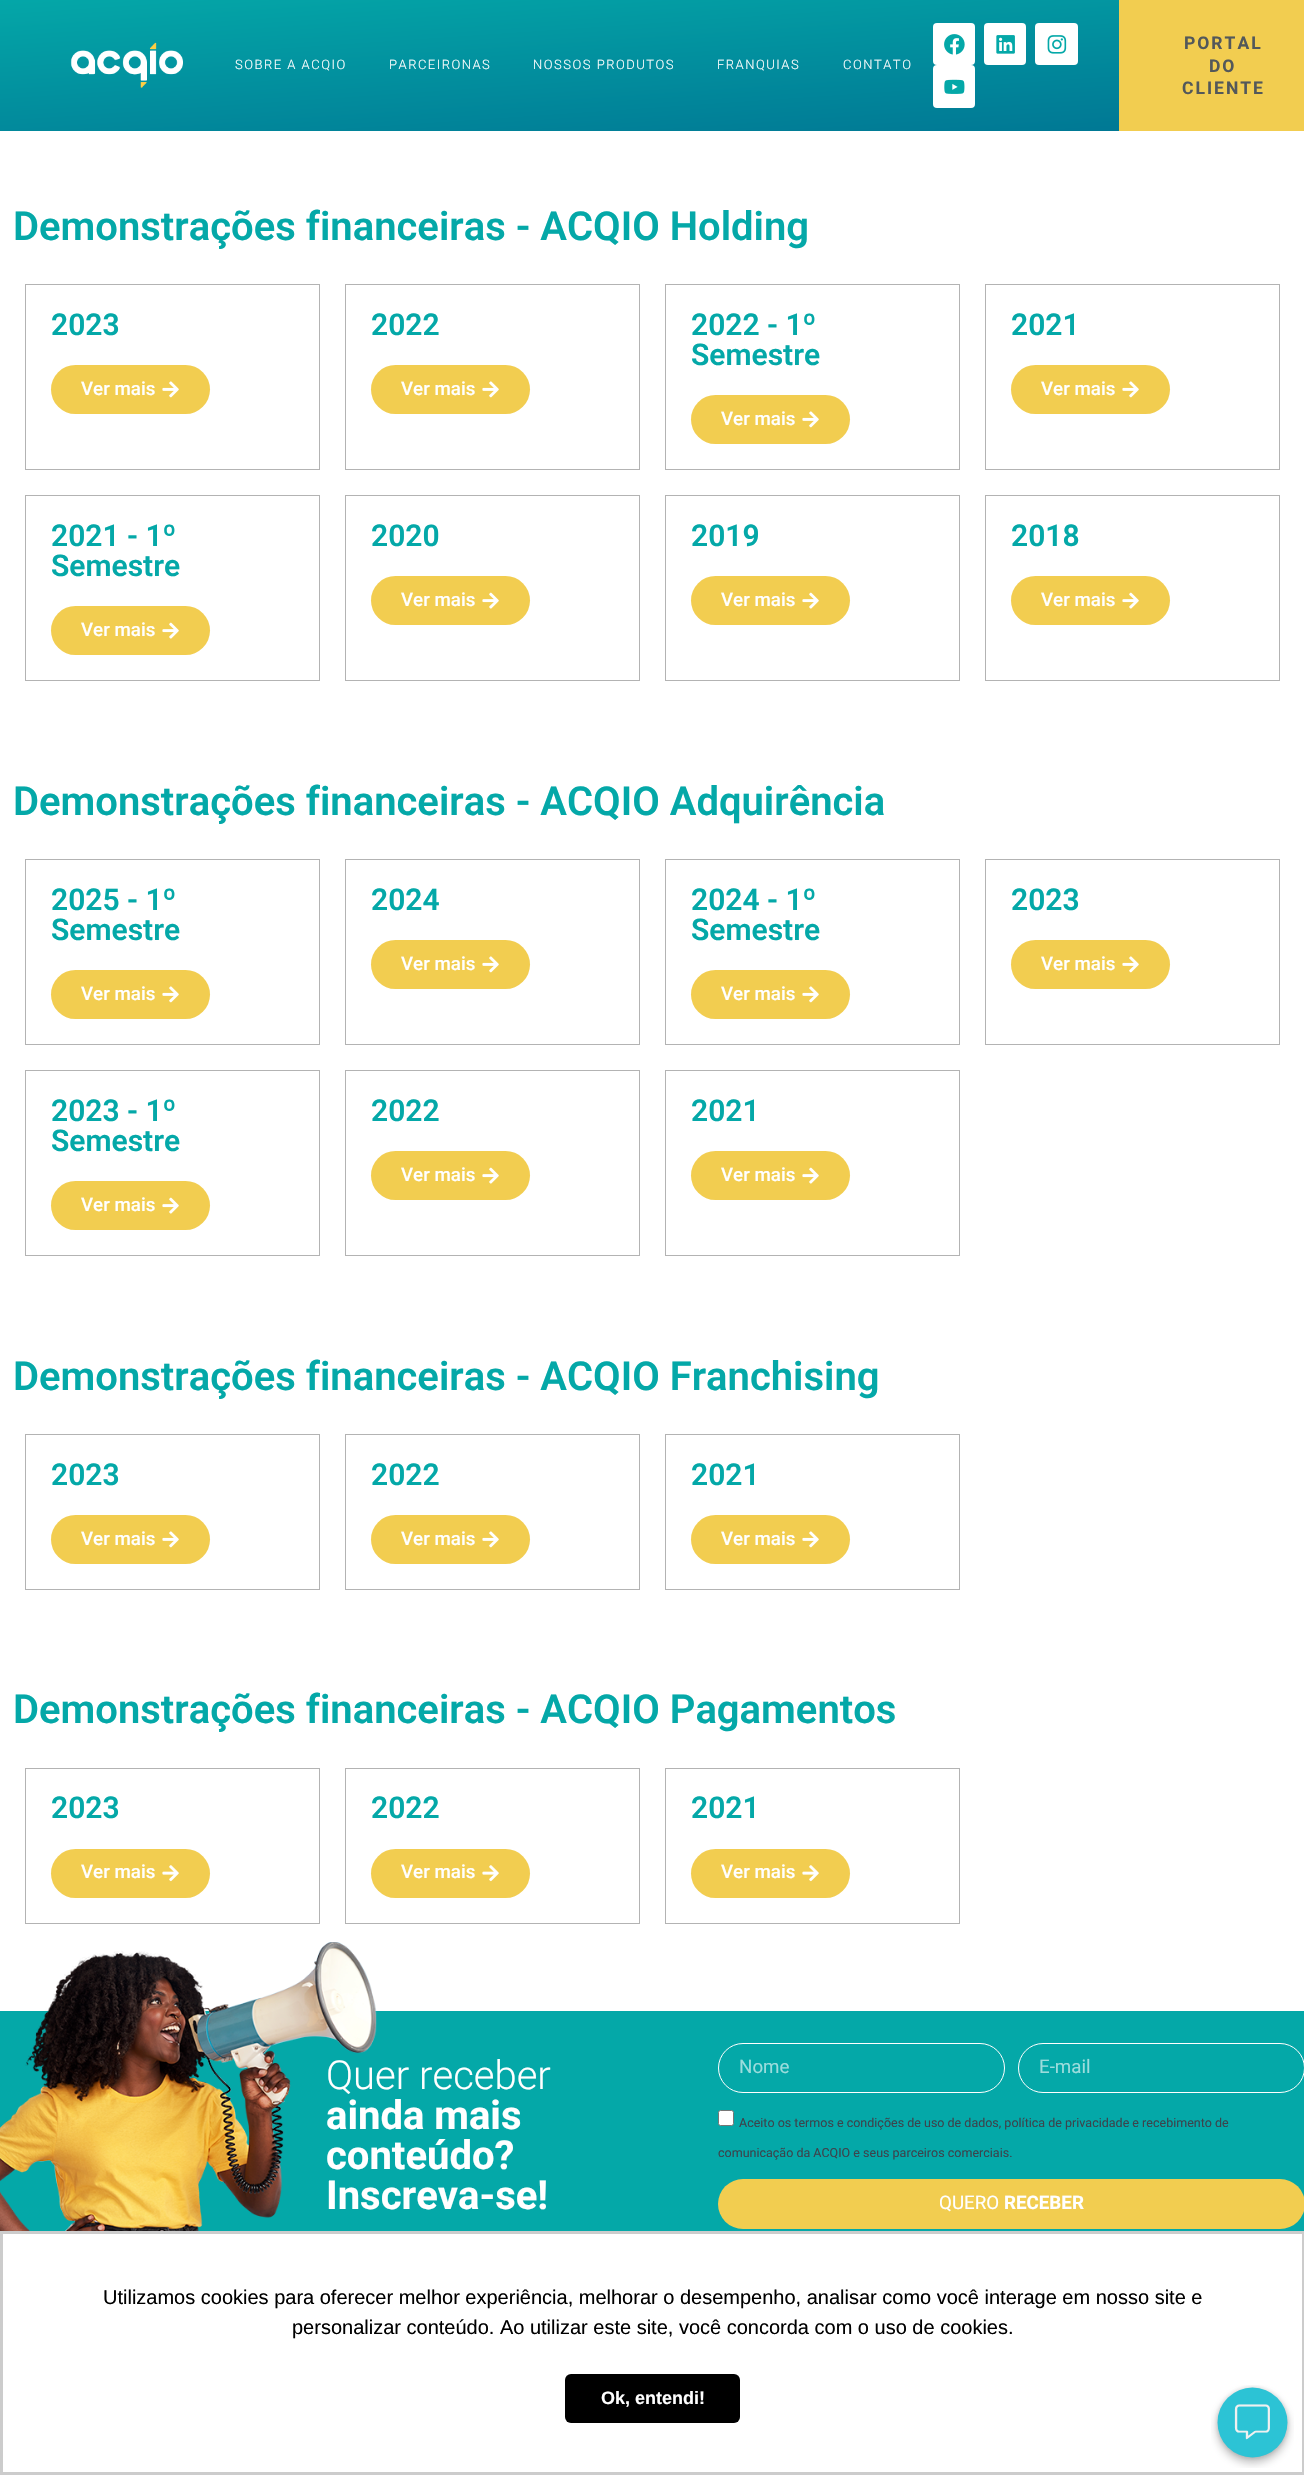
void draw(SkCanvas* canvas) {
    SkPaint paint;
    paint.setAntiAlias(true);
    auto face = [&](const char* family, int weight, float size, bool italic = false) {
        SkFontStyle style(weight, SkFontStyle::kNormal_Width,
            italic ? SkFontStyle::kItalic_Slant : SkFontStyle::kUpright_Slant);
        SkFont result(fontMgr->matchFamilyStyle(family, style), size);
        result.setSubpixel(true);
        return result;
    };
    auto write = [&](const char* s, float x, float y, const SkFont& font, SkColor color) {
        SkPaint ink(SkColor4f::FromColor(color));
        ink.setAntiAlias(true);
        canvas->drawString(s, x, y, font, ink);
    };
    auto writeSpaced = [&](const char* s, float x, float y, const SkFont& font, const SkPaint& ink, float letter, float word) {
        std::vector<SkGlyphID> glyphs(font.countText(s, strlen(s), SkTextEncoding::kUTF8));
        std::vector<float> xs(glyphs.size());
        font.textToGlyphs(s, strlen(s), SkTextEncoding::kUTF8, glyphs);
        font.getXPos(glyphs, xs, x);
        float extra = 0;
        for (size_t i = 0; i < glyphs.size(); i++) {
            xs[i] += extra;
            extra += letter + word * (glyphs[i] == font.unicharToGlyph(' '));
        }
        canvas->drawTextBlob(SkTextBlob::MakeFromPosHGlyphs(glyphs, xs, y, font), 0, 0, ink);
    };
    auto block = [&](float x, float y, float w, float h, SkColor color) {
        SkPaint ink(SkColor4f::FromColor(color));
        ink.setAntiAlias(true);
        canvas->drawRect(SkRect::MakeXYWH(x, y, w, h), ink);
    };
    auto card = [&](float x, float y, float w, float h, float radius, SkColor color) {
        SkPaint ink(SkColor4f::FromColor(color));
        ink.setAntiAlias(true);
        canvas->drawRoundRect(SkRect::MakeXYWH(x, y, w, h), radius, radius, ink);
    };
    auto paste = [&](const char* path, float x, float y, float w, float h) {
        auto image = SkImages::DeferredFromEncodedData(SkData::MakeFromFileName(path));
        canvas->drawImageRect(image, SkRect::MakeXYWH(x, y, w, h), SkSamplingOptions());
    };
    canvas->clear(SK_ColorWHITE);
    {
        const SkColor colors[] = {SkColorSetRGB(4, 167, 168), SkColorSetRGB(0, 117, 147)};
        const float stops[] = {0, 1};
        const SkPoint ends[] = {{645, -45}, {660, 176}};
        paint.setShader(SkGradientShader::MakeLinear(ends, colors, stops, 2, SkTileMode::kClamp));
        paint.setAlpha(255);
    }
    canvas->drawRect(SkRect::MakeXYWH(0, 0, 1119, 131), paint);
    paste("pic1.png", 70, 42, 113, 46);
    auto kFont1 = face("Roboto", 300, 13);
    paint.setShader(nullptr);
    paint.setColor(SK_ColorWHITE);
    writeSpaced("SOBRE A ACQIO", 235, 69, kFont1, paint, 1.5f, 0);
    writeSpaced("PARCEIRONAS", 389, 69, kFont1, paint, 1.5f, 0);
    writeSpaced("NOSSOS PRODUTOS", 533, 69, kFont1, paint, 1.5f, 0);
    writeSpaced("FRANQUIAS", 717, 69, kFont1, paint, 1.5f, 0);
    writeSpaced("CONTATO", 843, 69, kFont1, paint, 1.5f, 0);
    card(933, 23, 42, 42, 4, SK_ColorWHITE);
    paste("pic2.png", 944, 34, 21, 21);
    card(984, 23, 42, 42, 4, SK_ColorWHITE);
    paste("pic3.png", 996, 35, 19, 19);
    card(1035, 23, 43, 42, 4, SK_ColorWHITE);
    paste("pic4.png", 1047, 35, 20, 19);
    card(933, 65, 42, 43, 4, SK_ColorWHITE);
    paste("pic5.png", 944, 79, 21, 15);
    block(1119, 0, 185, 131, SkColorSetRGB(242, 205, 80));
    auto kFont2 = face("Roboto", 700, 17.5f);
    paint.setColor(SkColorSetRGB(83, 88, 90));
    writeSpaced("PORTAL", 1184, 49, kFont2, paint, 2, 0);
    writeSpaced("DO", 1209, 72, kFont2, paint, 2, 0);
    writeSpaced("CLIENTE", 1182, 94, kFont2, paint, 2, 0);
    auto kFont3 = face("Roboto", 600, 40);
    write("Demonstrações financeiras - ACQIO Holding", 13, 240, kFont3, SkColorSetRGB(4, 168, 168));
    paint.setStyle(SkPaint::kStroke_Style);
    paint.setStrokeWidth(1);
    paint.setColor(SkColorSetRGB(179, 179, 179));
    canvas->drawRect(SkRect::MakeXYWH(25.5f, 284.5f, 294, 185), paint);
    auto kFont4 = face("Roboto", 600, 30);
    write("2023", 51, 335, kFont4, SkColorSetRGB(4, 168, 168));
    card(51, 365, 159, 49, 24.5f, SkColorSetRGB(242, 205, 80));
    auto kFont5 = face("Roboto", 500, 18.75f);
    write("Ver mais", 81, 395, kFont5, SK_ColorWHITE);
    paste("pic6.png", 162, 381, 17, 17);
    canvas->drawRect(SkRect::MakeXYWH(345.5f, 284.5f, 294, 185), paint);
    write("2022", 371, 335, kFont4, SkColorSetRGB(4, 168, 168));
    card(371, 365, 159, 49, 24.5f, SkColorSetRGB(242, 205, 80));
    write("Ver mais", 401, 395, kFont5, SK_ColorWHITE);
    paste("pic6.png", 482, 381, 17, 17);
    canvas->drawRect(SkRect::MakeXYWH(665.5f, 284.5f, 294, 185), paint);
    write("2022 - 1º", 691, 335, kFont4, SkColorSetRGB(4, 168, 168));
    write("Semestre", 691, 365, kFont4, SkColorSetRGB(4, 168, 168));
    card(691, 395, 159, 49, 24.5f, SkColorSetRGB(242, 205, 80));
    write("Ver mais", 721, 425, kFont5, SK_ColorWHITE);
    paste("pic6.png", 802, 411, 17, 17);
    canvas->drawRect(SkRect::MakeXYWH(985.5f, 284.5f, 294, 185), paint);
    write("2021", 1011, 335, kFont4, SkColorSetRGB(4, 168, 168));
    card(1011, 365, 159, 49, 24.5f, SkColorSetRGB(242, 205, 80));
    write("Ver mais", 1041, 395, kFont5, SK_ColorWHITE);
    paste("pic6.png", 1122, 381, 17, 17);
    canvas->drawRect(SkRect::MakeXYWH(25.5f, 495.5f, 294, 185), paint);
    write("2021 - 1º", 51, 546, kFont4, SkColorSetRGB(4, 168, 168));
    write("Semestre", 51, 576, kFont4, SkColorSetRGB(4, 168, 168));
    card(51, 606, 159, 49, 24.5f, SkColorSetRGB(242, 205, 80));
    write("Ver mais", 81, 636, kFont5, SK_ColorWHITE);
    paste("pic7.png", 162, 622, 17, 17);
    canvas->drawRect(SkRect::MakeXYWH(345.5f, 495.5f, 294, 185), paint);
    write("2020", 371, 546, kFont4, SkColorSetRGB(4, 168, 168));
    card(371, 576, 159, 49, 24.5f, SkColorSetRGB(242, 205, 80));
    write("Ver mais", 401, 606, kFont5, SK_ColorWHITE);
    paste("pic7.png", 482, 592, 17, 17);
    canvas->drawRect(SkRect::MakeXYWH(665.5f, 495.5f, 294, 185), paint);
    write("2019", 691, 546, kFont4, SkColorSetRGB(4, 168, 168));
    card(691, 576, 159, 49, 24.5f, SkColorSetRGB(242, 205, 80));
    write("Ver mais", 721, 606, kFont5, SK_ColorWHITE);
    paste("pic7.png", 802, 592, 17, 17);
    canvas->drawRect(SkRect::MakeXYWH(985.5f, 495.5f, 294, 185), paint);
    write("2018", 1011, 546, kFont4, SkColorSetRGB(4, 168, 168));
    card(1011, 576, 159, 49, 24.5f, SkColorSetRGB(242, 205, 80));
    write("Ver mais", 1041, 606, kFont5, SK_ColorWHITE);
    paste("pic7.png", 1122, 592, 17, 17);
    write("Demonstrações financeiras - ACQIO Adquirência", 13, 815, kFont3, SkColorSetRGB(4, 168, 168));
    canvas->drawRect(SkRect::MakeXYWH(25.5f, 859.5f, 294, 185), paint);
    write("2025 - 1º", 51, 910, kFont4, SkColorSetRGB(4, 168, 168));
    write("Semestre", 51, 940, kFont4, SkColorSetRGB(4, 168, 168));
    card(51, 970, 159, 49, 24.5f, SkColorSetRGB(242, 205, 80));
    write("Ver mais", 81, 1000, kFont5, SK_ColorWHITE);
    paste("pic6.png", 162, 986, 17, 17);
    canvas->drawRect(SkRect::MakeXYWH(345.5f, 859.5f, 294, 185), paint);
    write("2024", 371, 910, kFont4, SkColorSetRGB(4, 168, 168));
    card(371, 940, 159, 49, 24.5f, SkColorSetRGB(242, 205, 80));
    write("Ver mais", 401, 970, kFont5, SK_ColorWHITE);
    paste("pic6.png", 482, 956, 17, 17);
    canvas->drawRect(SkRect::MakeXYWH(665.5f, 859.5f, 294, 185), paint);
    write("2024 - 1º", 691, 910, kFont4, SkColorSetRGB(4, 168, 168));
    write("Semestre", 691, 940, kFont4, SkColorSetRGB(4, 168, 168));
    card(691, 970, 159, 49, 24.5f, SkColorSetRGB(242, 205, 80));
    write("Ver mais", 721, 1000, kFont5, SK_ColorWHITE);
    paste("pic6.png", 802, 986, 17, 17);
    canvas->drawRect(SkRect::MakeXYWH(985.5f, 859.5f, 294, 185), paint);
    write("2023", 1011, 910, kFont4, SkColorSetRGB(4, 168, 168));
    card(1011, 940, 159, 49, 24.5f, SkColorSetRGB(242, 205, 80));
    write("Ver mais", 1041, 970, kFont5, SK_ColorWHITE);
    paste("pic6.png", 1122, 956, 17, 17);
    canvas->drawRect(SkRect::MakeXYWH(25.5f, 1070.5f, 294, 185), paint);
    write("2023 - 1º", 51, 1121, kFont4, SkColorSetRGB(4, 168, 168));
    write("Semestre", 51, 1151, kFont4, SkColorSetRGB(4, 168, 168));
    card(51, 1181, 159, 49, 24.5f, SkColorSetRGB(242, 205, 80));
    write("Ver mais", 81, 1211, kFont5, SK_ColorWHITE);
    paste("pic7.png", 162, 1197, 17, 17);
    canvas->drawRect(SkRect::MakeXYWH(345.5f, 1070.5f, 294, 185), paint);
    write("2022", 371, 1121, kFont4, SkColorSetRGB(4, 168, 168));
    card(371, 1151, 159, 49, 24.5f, SkColorSetRGB(242, 205, 80));
    write("Ver mais", 401, 1181, kFont5, SK_ColorWHITE);
    paste("pic7.png", 482, 1167, 17, 17);
    canvas->drawRect(SkRect::MakeXYWH(665.5f, 1070.5f, 294, 185), paint);
    write("2021", 691, 1121, kFont4, SkColorSetRGB(4, 168, 168));
    card(691, 1151, 159, 49, 24.5f, SkColorSetRGB(242, 205, 80));
    write("Ver mais", 721, 1181, kFont5, SK_ColorWHITE);
    paste("pic7.png", 802, 1167, 17, 17);
    write("Demonstrações financeiras - ACQIO Franchising", 13, 1390, kFont3, SkColorSetRGB(4, 168, 168));
    canvas->drawRect(SkRect::MakeXYWH(25.5f, 1434.5f, 294, 155), paint);
    write("2023", 51, 1485, kFont4, SkColorSetRGB(4, 168, 168));
    card(51, 1515, 159, 49, 24.5f, SkColorSetRGB(242, 205, 80));
    write("Ver mais", 81, 1545, kFont5, SK_ColorWHITE);
    paste("pic6.png", 162, 1531, 17, 17);
    canvas->drawRect(SkRect::MakeXYWH(345.5f, 1434.5f, 294, 155), paint);
    write("2022", 371, 1485, kFont4, SkColorSetRGB(4, 168, 168));
    card(371, 1515, 159, 49, 24.5f, SkColorSetRGB(242, 205, 80));
    write("Ver mais", 401, 1545, kFont5, SK_ColorWHITE);
    paste("pic6.png", 482, 1531, 17, 17);
    canvas->drawRect(SkRect::MakeXYWH(665.5f, 1434.5f, 294, 155), paint);
    write("2021", 691, 1485, kFont4, SkColorSetRGB(4, 168, 168));
    card(691, 1515, 159, 49, 24.5f, SkColorSetRGB(242, 205, 80));
    write("Ver mais", 721, 1545, kFont5, SK_ColorWHITE);
    paste("pic6.png", 802, 1531, 17, 17);
    write("Demonstrações financeiras - ACQIO Pagamentos", 13, 1723, kFont3, SkColorSetRGB(4, 168, 168));
    canvas->drawRect(SkRect::MakeXYWH(25.5f, 1768.5f, 294, 155), paint);
    write("2023", 51, 1818, kFont4, SkColorSetRGB(4, 168, 168));
    card(51, 1849, 159, 49, 24.5f, SkColorSetRGB(242, 205, 80));
    write("Ver mais", 81, 1878, kFont5, SK_ColorWHITE);
    paste("pic8.png", 162, 1865, 17, 17);
    canvas->drawRect(SkRect::MakeXYWH(345.5f, 1768.5f, 294, 155), paint);
    write("2022", 371, 1818, kFont4, SkColorSetRGB(4, 168, 168));
    card(371, 1849, 159, 49, 24.5f, SkColorSetRGB(242, 205, 80));
    write("Ver mais", 401, 1878, kFont5, SK_ColorWHITE);
    paste("pic8.png", 482, 1865, 17, 17);
    canvas->drawRect(SkRect::MakeXYWH(665.5f, 1768.5f, 294, 155), paint);
    write("2021", 691, 1818, kFont4, SkColorSetRGB(4, 168, 168));
    card(691, 1849, 159, 49, 24.5f, SkColorSetRGB(242, 205, 80));
    write("Ver mais", 721, 1878, kFont5, SK_ColorWHITE);
    paste("pic8.png", 802, 1865, 17, 17);
    block(0, 2011, 1304, 220, SkColorSetRGB(4, 168, 168));
    paste("pic9.png", 0, 1942, 377, 289);
    auto kFont6 = face("Roboto", 300, 40);
    write("Quer receber", 326, 2089, kFont6, SK_ColorWHITE);
    auto kFont7 = face("Roboto", 700, 40);
    write("ainda mais", 326, 2129, kFont7, SK_ColorWHITE);
    write("conteúdo?", 326, 2169, kFont7, SK_ColorWHITE);
    write("Inscreva-se!", 326, 2209, kFont7, SK_ColorWHITE);
    paint.setColor(SK_ColorWHITE);
    canvas->drawRoundRect(SkRect::MakeXYWH(718.5f, 2043.5f, 286, 49), 24.5f, 24.5f, paint);
    auto kFont8 = face("Roboto", 400, 18.75f);
    write("Nome", 739, 2073, kFont8, SkColorSetRGB(155, 220, 220));
    canvas->drawRoundRect(SkRect::MakeXYWH(1018.5f, 2043.5f, 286, 49), 24.5f, 24.5f, paint);
    write("E-mail", 1039, 2073, kFont8, SkColorSetRGB(155, 220, 220));
    paint.setStyle(SkPaint::kFill_Style);
    canvas->drawRoundRect(SkRect::MakeXYWH(718.5f, 2110.5f, 15, 15), 2, 2, paint);
    paint.setStyle(SkPaint::kStroke_Style);
    paint.setColor(SkColorSetRGB(118, 118, 118));
    canvas->drawRoundRect(SkRect::MakeXYWH(718.5f, 2110.5f, 15, 15), 2, 2, paint);
    auto kFont9 = face("Roboto", 400, 12.5f);
    write("Aceito os termos e condições de uso de dados, política de privacidade e recebimento de", 739, 2127, kFont9, SkColorSetRGB(59, 68, 77));
    write("comunicação da ACQIO e seus parceiros comerciais.", 718, 2157, kFont9, SkColorSetRGB(59, 68, 77));
    card(718, 2179, 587, 50, 25, SkColorSetRGB(242, 205, 80));
    write("QUERO", 939, 2209, kFont8, SK_ColorWHITE);
    auto kFont10 = face("Roboto", 700, 18.75f);
    write("RECEBER", 1004, 2209, kFont10, SK_ColorWHITE);
    paint.setStrokeWidth(3);
    paint.setColor(SkColorSetRGB(204, 204, 204));
    canvas->drawRect(SkRect::MakeXYWH(1.5f, 2232.5f, 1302, 241), paint);
    auto kFont11 = face("Liberation Sans", 400, 20);
    write("Utilizamos cookies para oferecer melhor experiência, melhorar o desempenho, analisar como você interage em nosso site e", 103, 2304, kFont11, SK_ColorBLACK);
    write("personalizar conteúdo. Ao utilizar este site, você concorda com o uso de cookies.", 292, 2334, kFont11, SK_ColorBLACK);
    card(565, 2374, 175, 49, 6, SK_ColorBLACK);
    auto kFont12 = face("Liberation Sans", 700, 18);
    write("Ok, entendi!", 601, 2404, kFont12, SK_ColorWHITE);
    paste("pic10.png", 1211, 2385, 83, 83);
}
